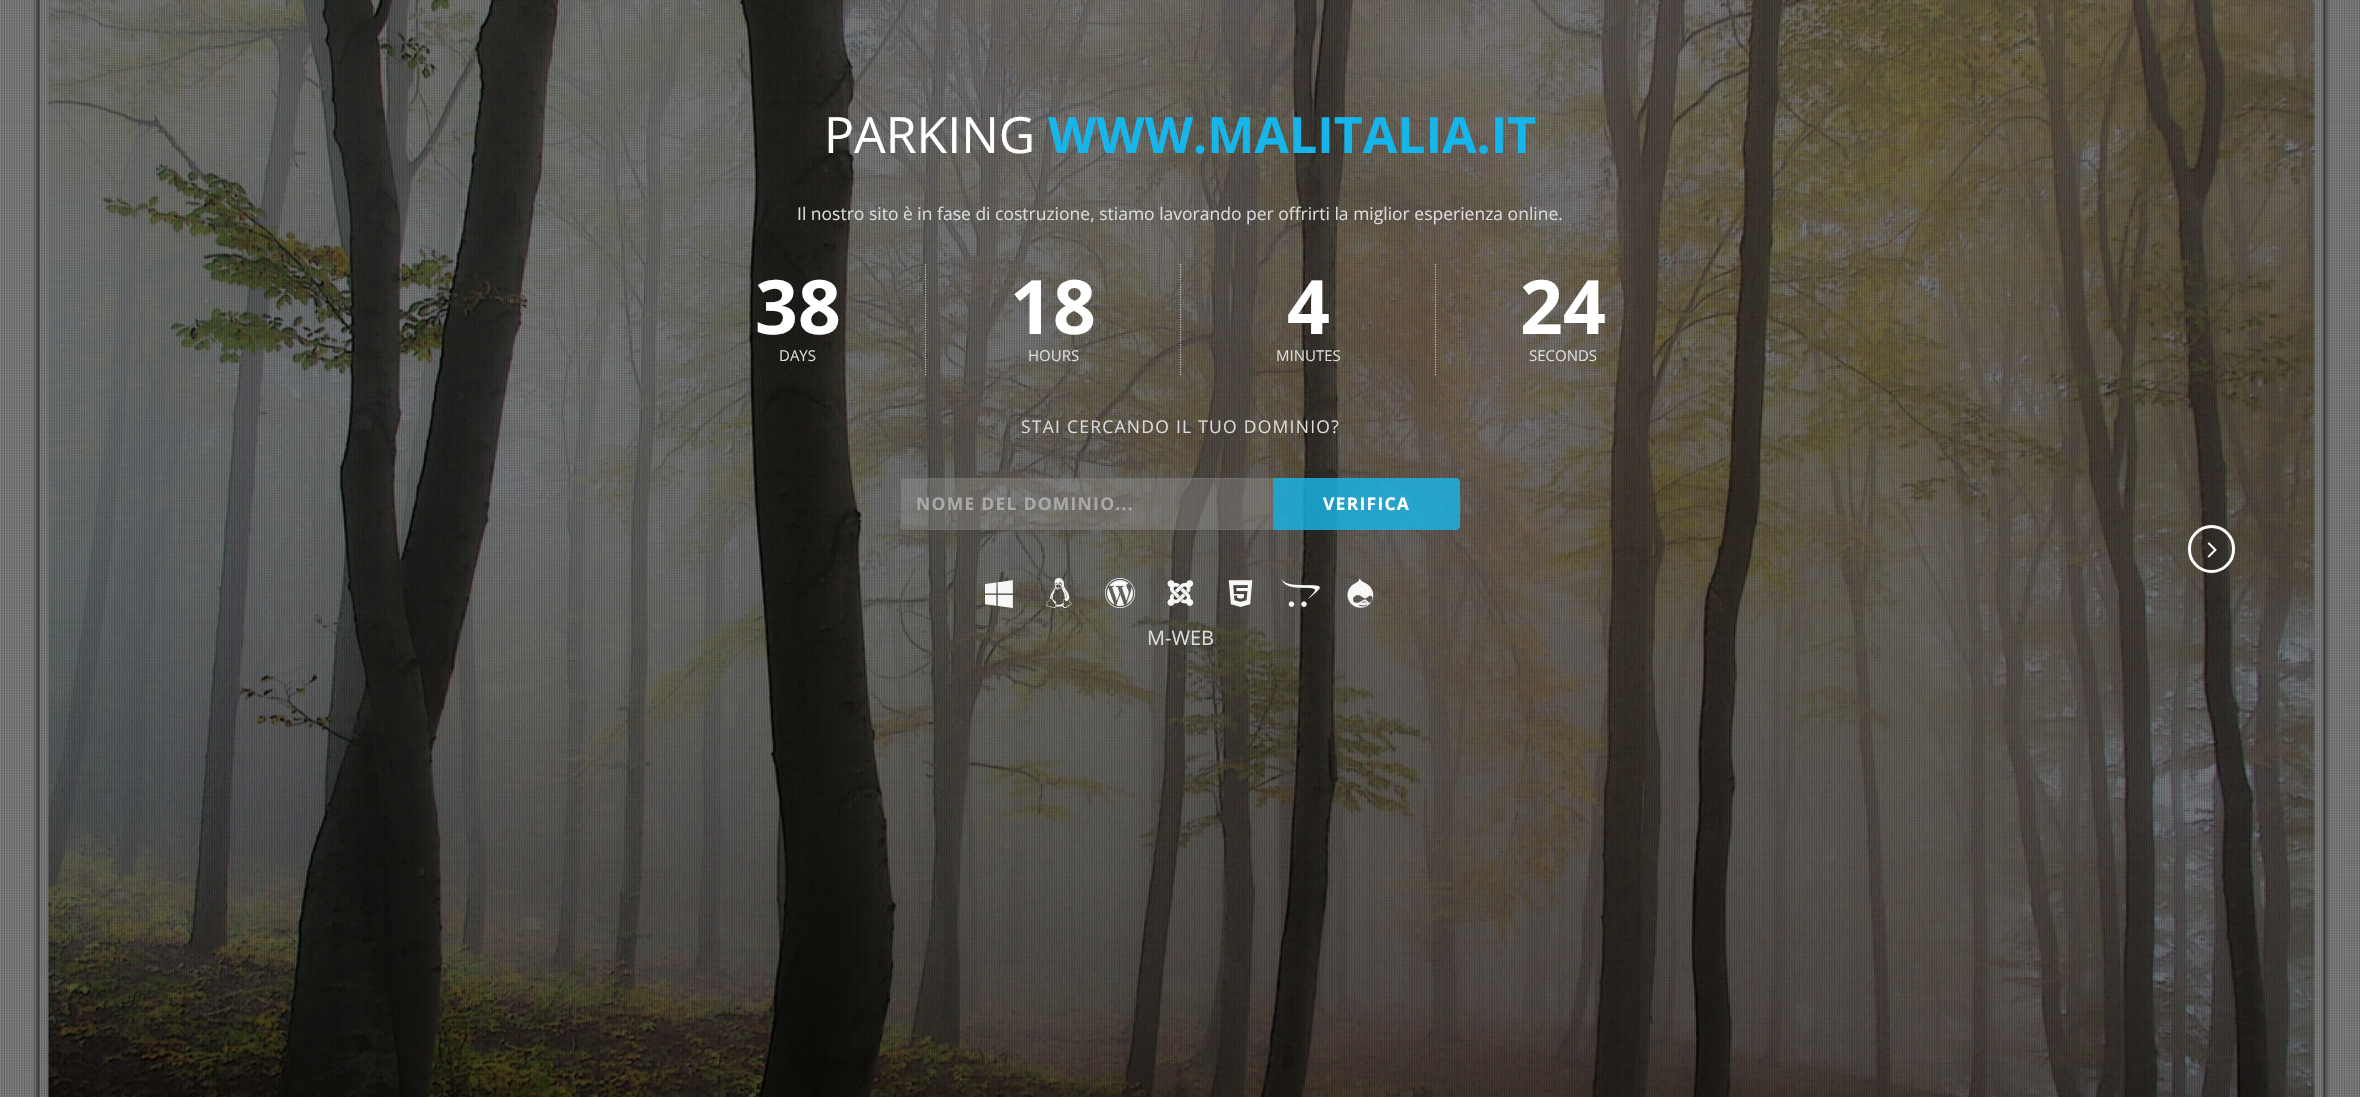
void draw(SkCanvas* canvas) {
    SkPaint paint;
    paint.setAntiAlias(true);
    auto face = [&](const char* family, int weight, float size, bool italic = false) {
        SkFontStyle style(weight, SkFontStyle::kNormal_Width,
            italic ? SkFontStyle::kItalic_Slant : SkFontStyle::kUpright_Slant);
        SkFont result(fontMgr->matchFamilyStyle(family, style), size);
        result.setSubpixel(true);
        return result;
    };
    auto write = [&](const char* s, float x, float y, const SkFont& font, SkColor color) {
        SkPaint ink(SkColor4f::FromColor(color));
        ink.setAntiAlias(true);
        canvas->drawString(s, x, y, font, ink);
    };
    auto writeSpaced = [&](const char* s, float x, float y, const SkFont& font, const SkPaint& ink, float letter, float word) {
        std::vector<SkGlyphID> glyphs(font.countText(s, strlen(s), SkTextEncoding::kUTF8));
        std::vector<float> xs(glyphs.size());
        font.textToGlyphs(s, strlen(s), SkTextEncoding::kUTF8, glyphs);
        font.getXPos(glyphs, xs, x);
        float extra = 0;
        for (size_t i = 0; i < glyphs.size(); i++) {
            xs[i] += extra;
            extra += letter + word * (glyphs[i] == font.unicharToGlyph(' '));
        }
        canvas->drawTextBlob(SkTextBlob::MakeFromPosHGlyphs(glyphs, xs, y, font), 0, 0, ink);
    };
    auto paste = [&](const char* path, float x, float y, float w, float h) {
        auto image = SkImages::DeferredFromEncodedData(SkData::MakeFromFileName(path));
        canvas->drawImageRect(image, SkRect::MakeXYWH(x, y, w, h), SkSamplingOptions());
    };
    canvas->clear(SkColorSetRGB(128, 128, 128));
    paste("pic2.png", 33, 0, 2297, 1097);
    paste("pic1.png", 1, 0, 2359, 1097);
    auto kFont1 = face("Open Sans", 400, 50);
    write("PARKING", 824, 153, kFont1, SK_ColorWHITE);
    auto kFont2 = face("Open Sans", 700, 50);
    write("WWW.MALITALIA.IT", 1048, 153, kFont2, SkColorSetRGB(22, 182, 234));
    auto kFont3 = face("Open Sans", 400, 17.5f);
    write("Il nostro sito è in fase di costruzione, stiamo lavorando per offrirti la miglior esperienza online.", 797, 220, kFont3, SkColorSetRGB(218, 218, 218));
    auto kFont4 = face("Open Sans", 700, 75);
    write("38", 755, 334, kFont4, SK_ColorWHITE);
    auto kFont5 = face("Open Sans", 400, 15);
    write("DAYS", 779, 361, kFont5, SkColorSetRGB(218, 218, 218));
    paint.setStyle(SkPaint::kStroke_Style);
    paint.setStrokeWidth(1.2f);
    paint.setColor(SkColorSetARGB(204, 218, 218, 218));
    paint.setPathEffect(SkDashPathEffect::Make({{1.25f, 1.25f}}, 0));
    canvas->drawPath(SkPathBuilder().moveTo(925.5f, 264).lineTo(925.5f, 376).detach(), paint);
    paint.setPathEffect(nullptr);
    write("18", 1010, 334, kFont4, SK_ColorWHITE);
    write("HOURS", 1028, 361, kFont5, SkColorSetRGB(218, 218, 218));
    paint.setPathEffect(SkDashPathEffect::Make({{1.25f, 1.25f}}, 0));
    canvas->drawPath(SkPathBuilder().moveTo(1180.5f, 264).lineTo(1180.5f, 376).detach(), paint);
    paint.setPathEffect(nullptr);
    write("4", 1287, 334, kFont4, SK_ColorWHITE);
    write("MINUTES", 1276, 361, kFont5, SkColorSetRGB(218, 218, 218));
    paint.setPathEffect(SkDashPathEffect::Make({{1.25f, 1.25f}}, 0));
    canvas->drawPath(SkPathBuilder().moveTo(1435.5f, 264).lineTo(1435.5f, 376).detach(), paint);
    paint.setPathEffect(nullptr);
    write("24", 1520, 334, kFont4, SK_ColorWHITE);
    write("SECONDS", 1529, 361, kFont5, SkColorSetRGB(218, 218, 218));
    paint.setStyle(SkPaint::kFill_Style);
    paint.setColor(SkColorSetRGB(218, 218, 218));
    writeSpaced("STAI CERCANDO IL TUO DOMINIO?", 1021, 433, kFont3, paint, 1.25f, 0);
    paint.setColor(SkColorSetARGB(77, 169, 169, 169));
    canvas->drawPath(SkPathBuilder().moveTo(904, 478).lineTo(1273, 478).lineTo(1273, 530).lineTo(904, 530).cubicTo(902, 530, 900, 528, 900, 526).lineTo(900, 482).cubicTo(900, 480, 902, 478, 904, 478).close().detach(), paint);
    paint.setColor(SkColorSetRGB(110, 110, 110));
    canvas->drawPath(SkPathBuilder(SkPathFillType::kEvenOdd).moveTo(904, 478).lineTo(1272, 478).lineTo(1272, 530).lineTo(904, 530).cubicTo(902, 530, 900, 528, 900, 526).lineTo(900, 481).cubicTo(900, 479, 902, 478, 904, 478).close().moveTo(904, 479).lineTo(1272, 479).lineTo(1272, 529).lineTo(904, 529).cubicTo(902, 529, 901, 528, 901, 526).lineTo(901, 481).cubicTo(901, 480, 902, 479, 904, 479).close().detach(), paint);
    auto kFont6 = face("Open Sans", 700, 17.5f);
    paint.setColor(SkColorSetRGB(169, 169, 169));
    writeSpaced("NOME DEL DOMINIO...", 916, 510, kFont6, paint, 1.25f, 0);
    paint.setColor(SkColorSetARGB(204, 22, 182, 234));
    canvas->drawPath(SkPathBuilder().moveTo(1273, 478).lineTo(1456, 478).cubicTo(1458, 478, 1460, 480, 1460, 482).lineTo(1460, 526).cubicTo(1460, 528, 1458, 530, 1456, 530).lineTo(1273, 530).close().detach(), paint);
    paint.setColor(SK_ColorWHITE);
    writeSpaced("VERIFICA", 1323, 510, kFont6, paint, 1.25f, 0);
    paste("pic3.png", 985, 580, 28, 28);
    paste("pic4.png", 1046, 578, 26, 30);
    paste("pic5.png", 1105, 578, 30, 30);
    paste("pic6.png", 1167, 580, 27, 26);
    paste("pic7.png", 1228, 580, 25, 27);
    paste("pic8.png", 1281, 579, 39, 28);
    paste("pic9.png", 1347, 578, 27, 30);
    auto kFont7 = face("Open Sans", 400, 20);
    write("M-WEB", 1147, 645, kFont7, SkColorSetRGB(218, 218, 218));
    paint.setStyle(SkPaint::kStroke_Style);
    paint.setStrokeWidth(3);
    canvas->drawRoundRect(SkRect::MakeXYWH(2189.5f, 526.5f, 44, 45), 22, 22, paint);
    paste("pic10.png", 2207, 542, 10, 16);
}
